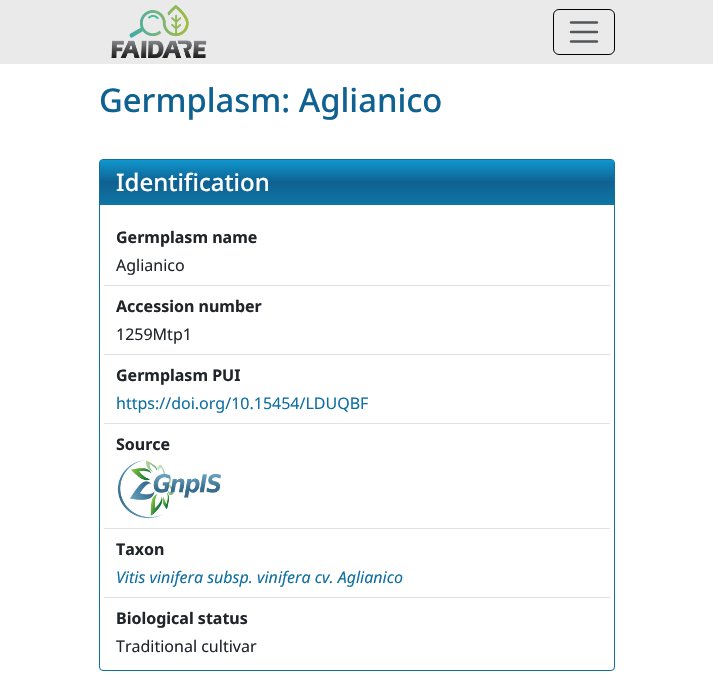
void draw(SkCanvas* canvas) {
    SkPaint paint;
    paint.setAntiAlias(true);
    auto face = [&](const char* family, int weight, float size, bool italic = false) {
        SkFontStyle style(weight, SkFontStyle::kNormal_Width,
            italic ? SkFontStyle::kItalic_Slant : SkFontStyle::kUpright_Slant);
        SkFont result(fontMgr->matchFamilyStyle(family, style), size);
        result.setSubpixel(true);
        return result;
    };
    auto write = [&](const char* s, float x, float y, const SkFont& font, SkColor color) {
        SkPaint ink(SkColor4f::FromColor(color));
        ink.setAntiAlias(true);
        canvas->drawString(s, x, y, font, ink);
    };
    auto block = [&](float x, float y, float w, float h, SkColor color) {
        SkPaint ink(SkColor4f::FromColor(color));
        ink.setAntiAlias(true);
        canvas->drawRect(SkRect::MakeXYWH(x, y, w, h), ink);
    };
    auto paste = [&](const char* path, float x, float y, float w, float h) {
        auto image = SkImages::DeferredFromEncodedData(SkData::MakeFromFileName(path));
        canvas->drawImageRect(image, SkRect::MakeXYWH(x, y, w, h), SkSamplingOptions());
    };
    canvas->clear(SK_ColorWHITE);
    block(0, 0, 713, 64, SkColorSetRGB(234, 234, 234));
    paste("pic1.png", 111, 4, 96, 54);
    paint.setStyle(SkPaint::kStroke_Style);
    paint.setStrokeWidth(1);
    paint.setColor(SK_ColorBLACK);
    canvas->drawRoundRect(SkRect::MakeXYWH(553.5f, 9.5f, 61, 45), 5.5f, 5.5f, paint);
    paint.setStrokeWidth(2.4f);
    paint.setStrokeCap(SkPaint::kRound_Cap);
    paint.setColor(SkColorSetRGB(83, 86, 89));
    canvas->drawPath(SkPathBuilder().moveTo(571, 22.5f).lineTo(597, 22.5f).moveTo(571, 32).lineTo(597, 32).moveTo(571, 41.5f).lineTo(597, 41.5f).detach(), paint);
    auto kFont1 = face("Noto Sans", 500, 32.75f);
    write("Germplasm: Aglianico", 99, 112, kFont1, SkColorSetRGB(15, 97, 145));
    paint.setStrokeWidth(1);
    paint.setStrokeCap(SkPaint::kButt_Cap);
    paint.setColor(SkColorSetRGB(15, 110, 159));
    canvas->drawRoundRect(SkRect::MakeXYWH(99.5f, 159.5f, 515, 511), 3.5f, 3.5f, paint);
    paint.setStyle(SkPaint::kFill_Style);
    {
        const SkColor colors[] = {SkColorSetRGB(15, 150, 205), SkColorSetRGB(15, 97, 145), SkColorSetRGB(15, 118, 165)};
        const float stops[] = {0, 0.5f, 1};
        const SkPoint ends[] = {{357, 160}, {357, 205}};
        paint.setShader(SkGradientShader::MakeLinear(ends, colors, stops, 3, SkTileMode::kClamp));
        paint.setAlpha(255);
    }
    canvas->drawRect(SkRect::MakeXYWH(100, 160, 514, 45), paint);
    auto kFont2 = face("Noto Sans", 500, 24);
    write("Identification", 116, 191, kFont2, SK_ColorWHITE);
    auto kFont3 = face("Noto Sans", 700, 16);
    write("Germplasm name", 116, 243, kFont3, SkColorSetRGB(33, 37, 41));
    auto kFont4 = face("Noto Sans", 400, 16);
    write("Aglianico", 116, 271, kFont4, SkColorSetRGB(33, 37, 41));
    block(104, 285, 506, 1, SkColorSetRGB(222, 226, 230));
    write("Accession number", 116, 312, kFont3, SkColorSetRGB(33, 37, 41));
    write("1259Mtp1", 116, 340, kFont4, SkColorSetRGB(33, 37, 41));
    block(104, 354, 506, 1, SkColorSetRGB(222, 226, 230));
    write("Germplasm PUI", 116, 381, kFont3, SkColorSetRGB(33, 37, 41));
    write("https://doi.org/10.15454/LDUQBF", 116, 409, kFont4, SkColorSetRGB(15, 111, 161));
    block(104, 423, 506, 1, SkColorSetRGB(222, 226, 230));
    write("Source", 116, 450, kFont3, SkColorSetRGB(33, 37, 41));
    paste("pic2.png", 117, 460, 104, 59);
    block(104, 528, 506, 1, SkColorSetRGB(222, 226, 230));
    write("Taxon", 116, 555, kFont3, SkColorSetRGB(33, 37, 41));
    auto kFont5 = face("Noto Sans", 400, 16, true);
    write("Vitis vinifera subsp. vinifera cv. Aglianico", 116, 583, kFont5, SkColorSetRGB(15, 111, 161));
    block(104, 597, 506, 1, SkColorSetRGB(222, 226, 230));
    write("Biological status", 116, 624, kFont3, SkColorSetRGB(33, 37, 41));
    write("Traditional cultivar", 116, 652, kFont4, SkColorSetRGB(33, 37, 41));
}
